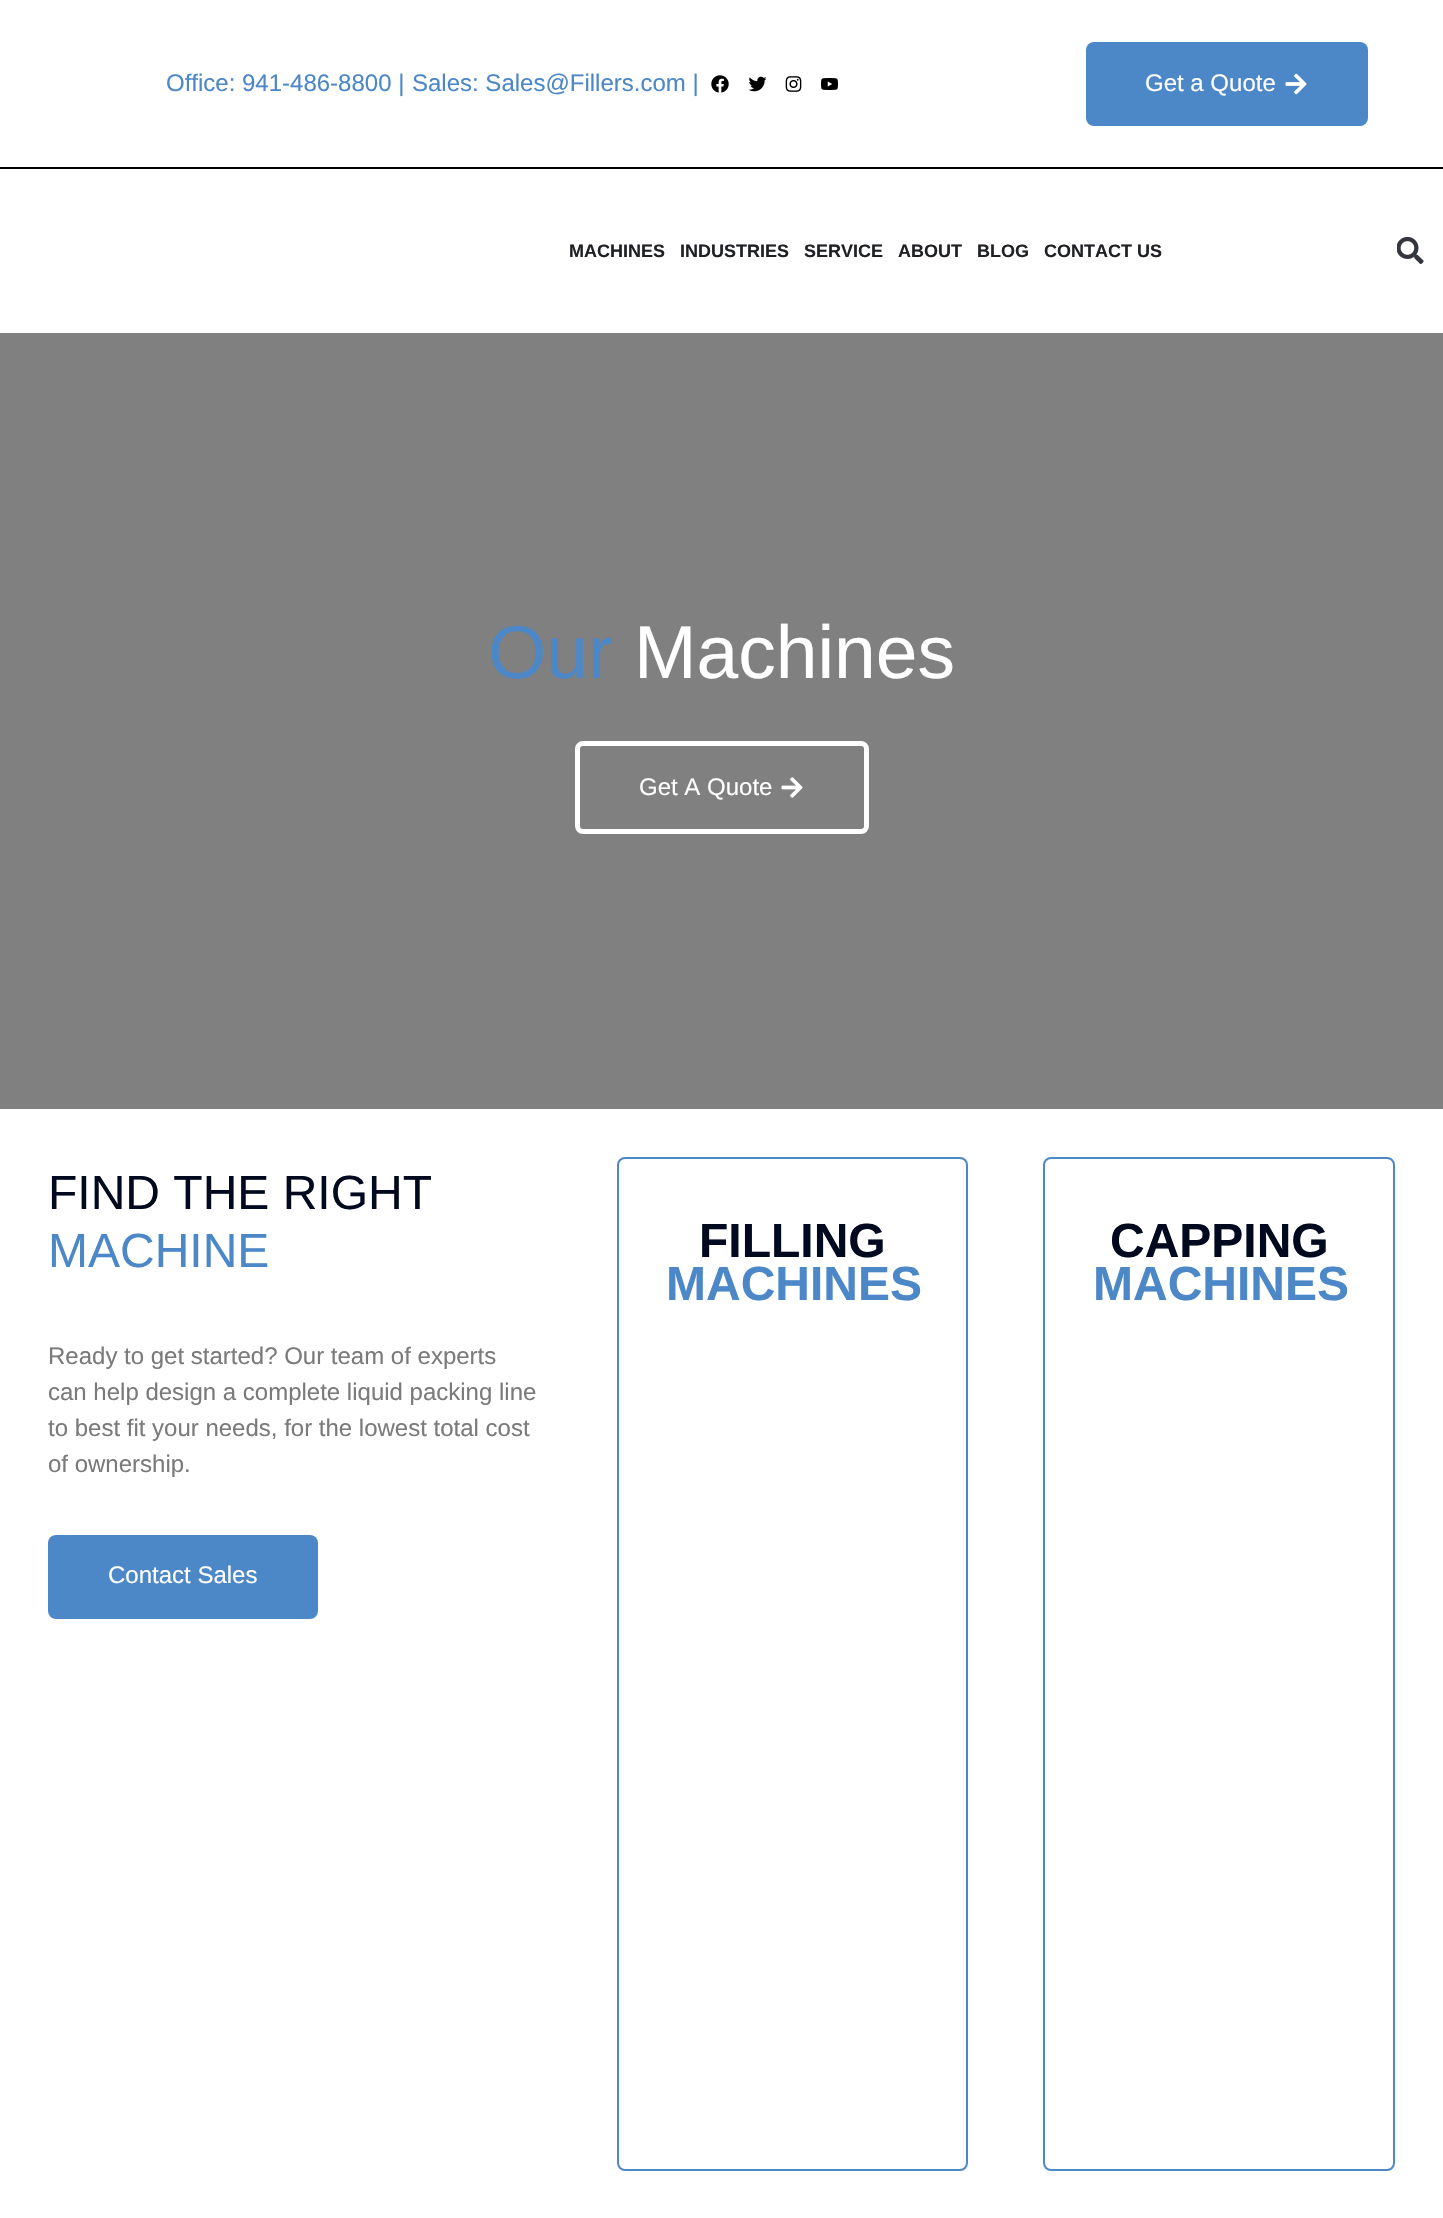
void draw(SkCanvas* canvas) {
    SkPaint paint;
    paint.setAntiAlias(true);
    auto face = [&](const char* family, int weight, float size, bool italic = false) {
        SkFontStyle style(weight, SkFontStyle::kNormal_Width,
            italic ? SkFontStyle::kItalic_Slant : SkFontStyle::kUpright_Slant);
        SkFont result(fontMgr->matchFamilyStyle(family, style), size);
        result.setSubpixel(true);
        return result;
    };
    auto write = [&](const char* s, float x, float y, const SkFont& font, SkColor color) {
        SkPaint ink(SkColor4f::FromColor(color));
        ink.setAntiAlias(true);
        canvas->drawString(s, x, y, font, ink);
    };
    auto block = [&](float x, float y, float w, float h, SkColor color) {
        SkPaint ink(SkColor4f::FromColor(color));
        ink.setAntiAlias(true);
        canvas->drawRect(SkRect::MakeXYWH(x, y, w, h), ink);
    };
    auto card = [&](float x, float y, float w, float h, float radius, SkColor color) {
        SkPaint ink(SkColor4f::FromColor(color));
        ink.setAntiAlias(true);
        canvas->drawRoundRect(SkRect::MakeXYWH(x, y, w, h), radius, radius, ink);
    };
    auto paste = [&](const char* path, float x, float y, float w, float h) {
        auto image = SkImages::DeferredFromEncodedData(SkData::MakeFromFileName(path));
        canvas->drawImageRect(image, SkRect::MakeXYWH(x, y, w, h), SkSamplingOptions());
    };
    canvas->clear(SK_ColorWHITE);
    block(0, 167, 1443, 2, SK_ColorBLACK);
    auto kFont1 = face("Liberation Sans", 400, 24);
    write("Office: 941-486-8800 |", 166, 91, kFont1, SkColorSetRGB(76, 135, 199));
    write("Sales: Sales@Fillers.com |", 412, 91, kFont1, SkColorSetRGB(76, 135, 199));
    paste("pic1.png", 711, 75, 18, 18);
    paste("pic2.png", 749, 76, 18, 16);
    paste("pic3.png", 785, 76, 17, 16);
    paste("pic4.png", 821, 78, 17, 12);
    card(1086, 42, 282, 84, 8, SkColorSetRGB(76, 135, 199));
    write("Get a Quote", 1145, 91, kFont1, SK_ColorWHITE);
    paste("pic5.png", 1285, 73, 22, 22);
    auto kFont2 = face("Liberation Sans", 700, 18);
    write("MACHINES", 569, 257, kFont2, SkColorSetRGB(31, 33, 36));
    write("INDUSTRIES", 680, 257, kFont2, SkColorSetRGB(31, 33, 36));
    write("SERVICE", 804, 257, kFont2, SkColorSetRGB(31, 33, 36));
    write("ABOUT", 898, 257, kFont2, SkColorSetRGB(31, 33, 36));
    write("BLOG", 977, 257, kFont2, SkColorSetRGB(31, 33, 36));
    write("CONTACT US", 1044, 257, kFont2, SkColorSetRGB(31, 33, 36));
    paste("pic6.png", 1397, 237, 27, 27);
    block(0, 333, 1443, 776, SkColorSetRGB(128, 128, 128));
    auto kFont3 = face("Liberation Sans", 400, 75);
    write("Our", 488, 678, kFont3, SkColorSetRGB(76, 135, 199));
    write("Machines", 634, 678, kFont3, SK_ColorWHITE);
    paint.setStyle(SkPaint::kStroke_Style);
    paint.setStrokeWidth(5);
    paint.setColor(SK_ColorWHITE);
    canvas->drawRoundRect(SkRect::MakeXYWH(577.5f, 743.5f, 289, 88), 5.5f, 5.5f, paint);
    write("Get A Quote", 639, 795, kFont1, SK_ColorWHITE);
    paste("pic7.png", 781, 777, 22, 21);
    auto kFont4 = face("Liberation Sans", 400, 48);
    write("FIND THE RIGHT", 48, 1209, kFont4, SkColorSetRGB(0, 9, 29));
    write("MACHINE", 48, 1267, kFont4, SkColorSetRGB(76, 135, 199));
    write("Ready to get started? Our team of experts", 48, 1364, kFont1, SkColorSetRGB(122, 122, 122));
    write("can help design a complete liquid packing line", 48, 1400, kFont1, SkColorSetRGB(122, 122, 122));
    write("to best fit your needs, for the lowest total cost", 48, 1436, kFont1, SkColorSetRGB(122, 122, 122));
    write("of ownership.", 48, 1472, kFont1, SkColorSetRGB(122, 122, 122));
    card(48, 1535, 270, 84, 8, SkColorSetRGB(76, 135, 199));
    write("Contact Sales", 108, 1583, kFont1, SK_ColorWHITE);
    paint.setStrokeWidth(2);
    paint.setColor(SkColorSetRGB(76, 135, 199));
    canvas->drawRoundRect(SkRect::MakeXYWH(618, 1158, 349, 1012), 7, 7, paint);
    auto kFont5 = face("Liberation Sans", 700, 48);
    write("FILLING", 699, 1257, kFont5, SkColorSetRGB(0, 9, 29));
    write("MACHINES", 666, 1300, kFont5, SkColorSetRGB(76, 135, 199));
    canvas->drawRoundRect(SkRect::MakeXYWH(1044, 1158, 350, 1012), 7, 7, paint);
    write("CAPPING", 1110, 1257, kFont5, SkColorSetRGB(0, 9, 29));
    write("MACHINES", 1093, 1300, kFont5, SkColorSetRGB(76, 135, 199));
}
